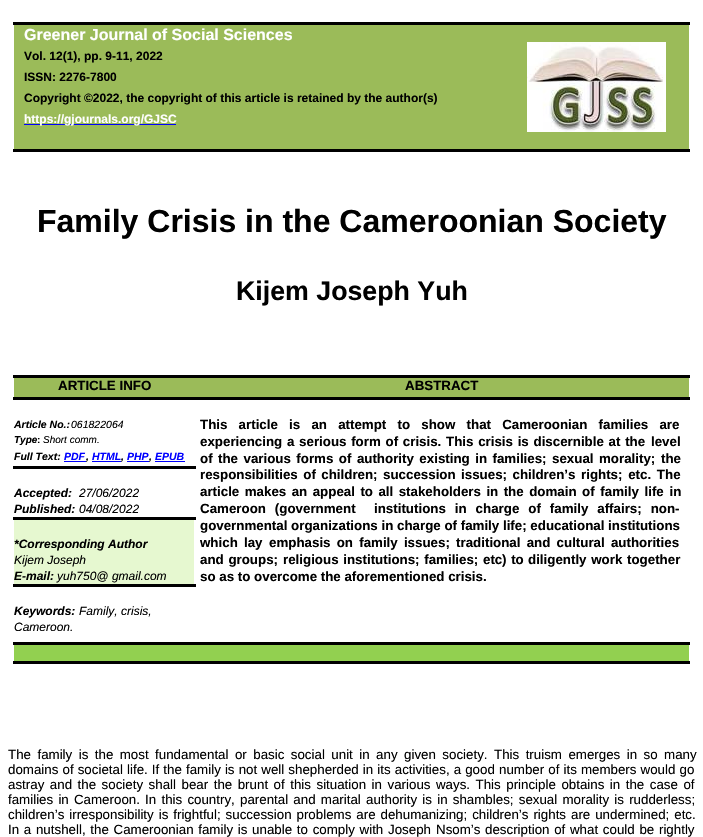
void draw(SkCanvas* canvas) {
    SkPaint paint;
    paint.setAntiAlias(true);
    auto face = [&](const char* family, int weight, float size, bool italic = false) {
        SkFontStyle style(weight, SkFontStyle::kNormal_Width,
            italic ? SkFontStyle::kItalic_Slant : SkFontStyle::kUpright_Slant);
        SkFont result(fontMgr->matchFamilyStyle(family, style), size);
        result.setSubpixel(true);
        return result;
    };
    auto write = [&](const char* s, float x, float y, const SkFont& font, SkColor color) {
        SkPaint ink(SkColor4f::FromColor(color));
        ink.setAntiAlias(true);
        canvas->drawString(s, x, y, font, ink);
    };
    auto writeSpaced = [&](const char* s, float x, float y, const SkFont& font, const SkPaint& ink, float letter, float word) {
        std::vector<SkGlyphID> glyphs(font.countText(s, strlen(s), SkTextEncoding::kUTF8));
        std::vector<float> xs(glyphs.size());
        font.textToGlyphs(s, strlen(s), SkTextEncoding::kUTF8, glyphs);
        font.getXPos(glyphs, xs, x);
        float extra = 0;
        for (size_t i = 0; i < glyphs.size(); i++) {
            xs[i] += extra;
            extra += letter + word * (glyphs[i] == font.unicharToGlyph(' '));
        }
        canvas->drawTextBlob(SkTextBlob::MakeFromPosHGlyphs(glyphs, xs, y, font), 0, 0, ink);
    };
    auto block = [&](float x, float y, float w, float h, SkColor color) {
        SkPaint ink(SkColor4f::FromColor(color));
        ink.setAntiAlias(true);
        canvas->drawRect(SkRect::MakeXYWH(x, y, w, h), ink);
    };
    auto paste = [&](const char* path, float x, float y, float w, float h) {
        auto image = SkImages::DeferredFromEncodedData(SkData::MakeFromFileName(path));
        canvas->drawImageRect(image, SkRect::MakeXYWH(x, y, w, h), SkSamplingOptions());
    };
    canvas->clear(SK_ColorWHITE);
    block(14, 25, 675, 124, SkColorSetRGB(155, 187, 89));
    block(13, 22, 677, 3, SK_ColorBLACK);
    block(13, 149, 677, 3, SK_ColorBLACK);
    paste("pic1.png", 527, 42, 139, 90);
    auto kFont1 = face("Liberation Sans", 700, 16);
    write("Greener Journal of Social Sciences", 24, 40, kFont1, SK_ColorWHITE);
    auto kFont2 = face("Liberation Sans", 700, 12);
    write("Vol. 12(1), pp. 9-11, 2022", 24, 60, kFont2, SK_ColorBLACK);
    write("ISSN: 2276-7800", 24, 81, kFont2, SK_ColorBLACK);
    write("Copyright ©2022, the copyright of this article is retained by the author(s)", 24, 102, kFont2, SK_ColorBLACK);
    block(24, 124, 152, 1, SkColorSetRGB(0, 0, 255));
    write("https://gjournals.org/GJSC", 24, 123, kFont2, SK_ColorWHITE);
    auto kFont3 = face("Liberation Sans", 700, 32);
    write("Family Crisis in the Cameroonian Society", 37, 232, kFont3, SK_ColorBLACK);
    auto kFont4 = face("Liberation Sans", 700, 26.75f);
    write("Kijem Joseph Yuh", 236, 300, kFont4, SK_ColorBLACK);
    block(14, 378, 675, 19, SkColorSetRGB(155, 187, 89));
    auto kFont5 = face("Liberation Sans", 700, 13.33f);
    write("ARTICLE INFO", 58, 390, kFont5, SK_ColorBLACK);
    block(13, 375, 677, 3, SK_ColorBLACK);
    block(13, 397, 677, 3, SK_ColorBLACK);
    write("ABSTRACT", 405, 390, kFont5, SK_ColorBLACK);
    block(13, 466, 183, 3, SK_ColorBLACK);
    auto kFont6 = face("Liberation Sans", 700, 10.5f, true);
    write("Article No.:", 14, 428, kFont6, SK_ColorBLACK);
    auto kFont7 = face("Liberation Sans", 400, 10.5f, true);
    write("061822064", 71, 428, kFont7, SK_ColorBLACK);
    auto kFont8 = face("Liberation Sans", 700, 10, true);
    write("Type", 14, 443, kFont8, SK_ColorBLACK);
    auto kFont9 = face("Liberation Sans", 700, 10);
    write(":", 37, 443, kFont9, SK_ColorBLACK);
    auto kFont10 = face("Liberation Sans", 400, 10, true);
    write("Short comm.", 43, 443, kFont10, SK_ColorBLACK);
    write("Full Text:", 14, 460, kFont6, SK_ColorBLACK);
    write("PDF", 64, 460, kFont6, SkColorSetRGB(0, 0, 255));
    block(64, 461, 22, 1, SkColorSetRGB(0, 0, 255));
    write(",", 86, 460, kFont6, SK_ColorBLACK);
    write("HTML", 92, 460, kFont6, SkColorSetRGB(0, 0, 255));
    write(",", 121, 460, kFont6, SK_ColorBLACK);
    block(92, 461, 29, 1, SkColorSetRGB(0, 0, 255));
    write("PHP", 127, 460, kFont6, SkColorSetRGB(0, 0, 255));
    write("EPUB", 155, 460, kFont6, SkColorSetRGB(0, 0, 255));
    block(127, 461, 22, 1, SkColorSetRGB(0, 0, 255));
    write(",", 149, 460, kFont6, SK_ColorBLACK);
    block(155, 461, 30, 1, SkColorSetRGB(0, 0, 255));
    paint.setColor(SK_ColorBLACK);
    writeSpaced("This article is an attempt to show that Cameroonian families are", 200, 429, kFont5, paint, 0, 7.5f);
    writeSpaced("experiencing a serious form of crisis. This crisis is discernible at the", 200, 446, kFont5, paint, 0, 1);
    write("level", 651, 446, kFont5, SK_ColorBLACK);
    writeSpaced("of the various forms of authority existing in families; sexual", 200, 463, kFont5, paint, 0, 1.75f);
    writeSpaced("morality; the", 599, 463, kFont5, paint, 0, 2);
    writeSpaced("responsibilities of children; succession issues; children’s", 200, 479, kFont5, paint, 0, 1.75f);
    writeSpaced("rights; etc. The", 581, 479, kFont5, paint, 0, 2);
    writeSpaced("article makes an appeal to all stakeholders in the domain", 200, 496, kFont5, paint, 0, 1.75f);
    writeSpaced("of family life in", 582, 496, kFont5, paint, 0, 2);
    writeSpaced("Cameroon (government", 200, 513, kFont5, paint, 0, 5.25f);
    writeSpaced("institutions in charge of family affairs; non-", 374, 513, kFont5, paint, 0, 5.25f);
    write("governmental organizations in charge of family life; educational institutions", 200, 530, kFont5, SK_ColorBLACK);
    writeSpaced("which lay", 200, 547, kFont5, paint, 0, 2.5f);
    writeSpaced("emphasis on family issues; traditional and cultural authorities", 269, 547, kFont5, paint, 0, 2.5f);
    writeSpaced("and groups;", 200, 564, kFont5, paint, 0, 1);
    writeSpaced("religious institutions; families;", 283, 564, kFont5, paint, 0, 1);
    write("etc", 483, 564, kFont5, SK_ColorBLACK);
    writeSpaced(") to", 502, 564, kFont5, paint, 0, 1);
    writeSpaced("diligently work together", 528, 564, kFont5, paint, 0, 1);
    write("so as to overcome the aforementioned crisis.", 200, 581, kFont5, SK_ColorBLACK);
    block(13, 517, 183, 3, SK_ColorBLACK);
    auto kFont11 = face("Liberation Sans", 700, 12, true);
    write("Accepted:", 14, 497, kFont11, SK_ColorBLACK);
    auto kFont12 = face("Liberation Sans", 400, 12, true);
    write("27/06/2022", 79, 497, kFont12, SK_ColorBLACK);
    write("Published:", 14, 513, kFont11, SK_ColorBLACK);
    write("04/08/2022", 79, 513, kFont12, SK_ColorBLACK);
    block(14, 520, 180, 64, SkColorSetRGB(230, 248, 208));
    block(13, 584, 183, 3, SK_ColorBLACK);
    write("*Corresponding Author", 14, 548, kFont11, SK_ColorBLACK);
    write("Kijem Joseph", 14, 564, kFont12, SK_ColorBLACK);
    write("E-mail:", 14, 580, kFont11, SK_ColorBLACK);
    write("yuh750@ gmail.com", 57, 580, kFont12, SK_ColorBLACK);
    block(13, 642, 677, 3, SK_ColorBLACK);
    write("Keywords:", 14, 615, kFont11, SK_ColorBLACK);
    write("Family, crisis,", 79, 615, kFont12, SK_ColorBLACK);
    write("Cameroon.", 14, 631, kFont12, SK_ColorBLACK);
    block(14, 645, 675, 16, SkColorSetRGB(146, 208, 80));
    block(13, 661, 677, 3, SK_ColorBLACK);
    auto kFont13 = face("Liberation Sans", 400, 13.33f);
    writeSpaced("The family is the most fundamental or basic social unit in any given society. This truism emerges in so many", 8, 759, kFont13, paint, 0, 2.75f);
    writeSpaced("domains of societal life. If the family is not well shepherded in its activities, a good number of its members would go", 8, 774, kFont13, paint, 0, 0.4f);
    writeSpaced("astray and the society shall bear the brunt of this situation in various ways. This principle obtains in the case of", 8, 789, kFont13, paint, 0, 1.8f);
    writeSpaced("families in Cameroon. In this country, parental and marital authority is in shambles; sexual morality is rudderless;", 8, 804, kFont13, paint, 0, 1.5f);
    writeSpaced("children’s irresponsibility is frightful; succession problems are dehumanizing; children’s rights are undermined; etc.", 8, 819, kFont13, paint, 0, 1.25f);
    writeSpaced("In a nutshell, the Cameroonian family is unable to comply with Joseph", 8, 834, kFont13, paint, 0, 1);
    write("Nsom’s", 436, 834, kFont13, SK_ColorBLACK);
    writeSpaced("description of what could be rightly", 485, 834, kFont13, paint, 0, 1);
}
